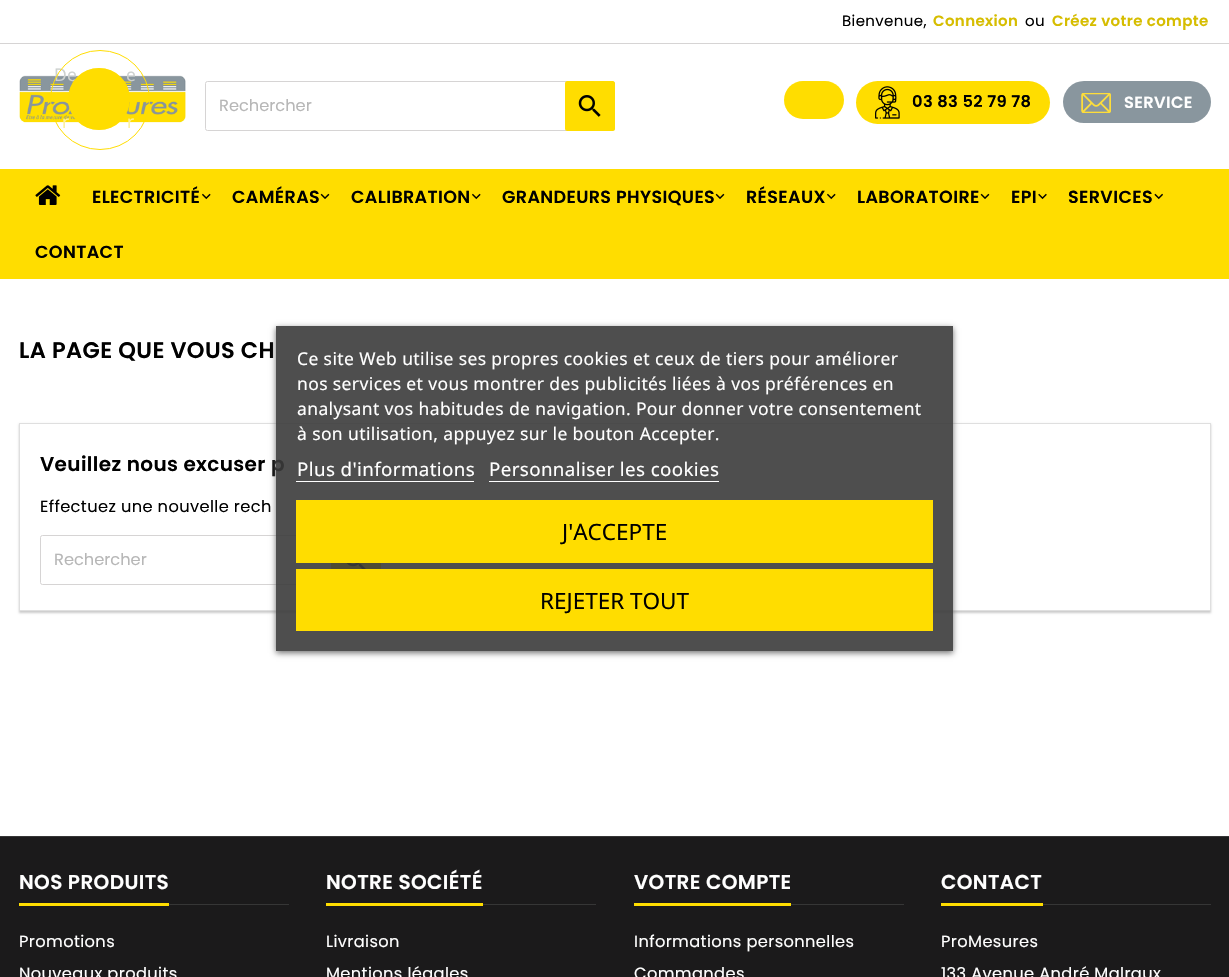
void draw(SkCanvas* canvas) {
    SkPaint paint;
    paint.setAntiAlias(true);
    auto face = [&](const char* family, int weight, float size, bool italic = false) {
        SkFontStyle style(weight, SkFontStyle::kNormal_Width,
            italic ? SkFontStyle::kItalic_Slant : SkFontStyle::kUpright_Slant);
        SkFont result(fontMgr->matchFamilyStyle(family, style), size);
        result.setSubpixel(true);
        return result;
    };
    auto write = [&](const char* s, float x, float y, const SkFont& font, SkColor color) {
        SkPaint ink(SkColor4f::FromColor(color));
        ink.setAntiAlias(true);
        canvas->drawString(s, x, y, font, ink);
    };
    auto writeSpaced = [&](const char* s, float x, float y, const SkFont& font, const SkPaint& ink, float letter, float word) {
        std::vector<SkGlyphID> glyphs(font.countText(s, strlen(s), SkTextEncoding::kUTF8));
        std::vector<float> xs(glyphs.size());
        font.textToGlyphs(s, strlen(s), SkTextEncoding::kUTF8, glyphs);
        font.getXPos(glyphs, xs, x);
        float extra = 0;
        for (size_t i = 0; i < glyphs.size(); i++) {
            xs[i] += extra;
            extra += letter + word * (glyphs[i] == font.unicharToGlyph(' '));
        }
        canvas->drawTextBlob(SkTextBlob::MakeFromPosHGlyphs(glyphs, xs, y, font), 0, 0, ink);
    };
    auto block = [&](float x, float y, float w, float h, SkColor color) {
        SkPaint ink(SkColor4f::FromColor(color));
        ink.setAntiAlias(true);
        canvas->drawRect(SkRect::MakeXYWH(x, y, w, h), ink);
    };
    auto card = [&](float x, float y, float w, float h, float radius, SkColor color) {
        SkPaint ink(SkColor4f::FromColor(color));
        ink.setAntiAlias(true);
        canvas->drawRoundRect(SkRect::MakeXYWH(x, y, w, h), radius, radius, ink);
    };
    auto paste = [&](const char* path, float x, float y, float w, float h) {
        auto image = SkImages::DeferredFromEncodedData(SkData::MakeFromFileName(path));
        canvas->drawImageRect(image, SkRect::MakeXYWH(x, y, w, h), SkSamplingOptions());
    };
    canvas->clear(SK_ColorWHITE);
    block(0, 43, 1229, 1, SkColorSetRGB(214, 212, 212));
    auto kFont1 = face("Poppins", 400, 15);
    paint.setColor(SK_ColorBLACK);
    writeSpaced("Bienvenue,", 842, 26, kFont1, paint, 0.38f, 0);
    auto kFont2 = face("Poppins", 600, 15);
    paint.setColor(SkColorSetRGB(214, 189, 0));
    writeSpaced("Connexion", 933, 26, kFont2, paint, 0.38f, 0);
    paint.setColor(SK_ColorBLACK);
    writeSpaced("ou", 1025, 26, kFont1, paint, 0.38f, 0);
    paint.setColor(SkColorSetRGB(214, 189, 0));
    writeSpaced("Créez votre compte", 1052, 26, kFont2, paint, 0.38f, 0);
    paste("pic1.png", 19, 75, 167, 48);
    paint.setStyle(SkPaint::kStroke_Style);
    paint.setStrokeWidth(1);
    paint.setColor(SkColorSetRGB(214, 212, 212));
    canvas->drawRoundRect(SkRect::MakeXYWH(205.5f, 81.5f, 409, 49), 2, 2, paint);
    auto kFont3 = face("Poppins", 400, 16.25f);
    write("Rechercher", 219, 111, kFont3, SkColorSetRGB(183, 183, 183));
    card(565, 81, 50, 50, 2.5f, SkColorSetRGB(255, 221, 0));
    paste("pic2.png", 578, 95, 23, 22);
    card(784, 81, 60, 38, 19, SkColorSetRGB(255, 221, 0));
    card(856, 81, 194, 43, 21.5f, SkColorSetRGB(255, 221, 0));
    paste("pic3.png", 875, 86, 25, 33);
    auto kFont4 = face("Poppins", 600, 16.25f);
    paint.setStyle(SkPaint::kFill_Style);
    paint.setColor(SK_ColorBLACK);
    writeSpaced("03 83 52 79 78", 912, 107, kFont4, paint, 0.38f, 0);
    card(1063, 81, 148, 42, 21, SkColorSetRGB(137, 150, 158));
    paste("pic4.png", 1081, 93, 30, 20);
    paint.setColor(SK_ColorWHITE);
    writeSpaced("SERVICE", 1124, 108, kFont4, paint, 0.38f, 0);
    block(0, 169, 1229, 110, SkColorSetRGB(255, 221, 0));
    paste("pic5.png", 35, 185, 26, 20);
    auto kFont5 = face("Poppins", 600, 17.5f);
    paint.setColor(SK_ColorBLACK);
    writeSpaced("ELECTRICITÉ", 92, 203, kFont5, paint, 0.38f, 0);
    paste("pic6.png", 202, 193, 9, 7);
    writeSpaced("CAMÉRAS", 232, 203, kFont5, paint, 0.38f, 0);
    paste("pic7.png", 320, 193, 10, 6);
    writeSpaced("CALIBRATION", 351, 203, kFont5, paint, 0.38f, 0);
    paste("pic6.png", 472, 193, 9, 7);
    writeSpaced("GRANDEURS PHYSIQUES", 502, 203, kFont5, paint, 0.38f, 0);
    paste("pic7.png", 715, 193, 10, 6);
    writeSpaced("RÉSEAUX", 746, 203, kFont5, paint, 0.38f, 0);
    paste("pic6.png", 827, 193, 9, 7);
    writeSpaced("LABORATOIRE", 857, 203, kFont5, paint, 0.38f, 0);
    paste("pic7.png", 980, 193, 10, 6);
    writeSpaced("EPI", 1011, 203, kFont5, paint, 0.38f, 0);
    paste("pic8.png", 1038, 193, 9, 7);
    writeSpaced("SERVICES", 1068, 203, kFont5, paint, 0.38f, 0);
    paste("pic9.png", 1154, 193, 9, 7);
    writeSpaced("CONTACT", 35, 258, kFont5, paint, 0.38f, 0);
    auto kFont6 = face("Poppins", 600, 22.5f);
    writeSpaced("LA PAGE QUE VOUS CH", 19, 358, kFont6, paint, 0.38f, 0);
    canvas->save();
    canvas->clipPath(SkPathBuilder(SkPathFillType::kEvenOdd).moveTo(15, 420).lineTo(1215, 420).lineTo(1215, 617).lineTo(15, 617).close().moveTo(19, 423).lineTo(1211, 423).lineTo(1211, 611).lineTo(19, 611).close().detach(), true);
    paint.setColor(SkColorSetARGB(51, 0, 0, 0));
    paint.setMaskFilter(SkMaskFilter::MakeBlur(kNormal_SkBlurStyle, 1));
    canvas->drawRect(SkRect::MakeXYWH(19, 424, 1192, 189), paint);
    paint.setMaskFilter(nullptr);
    canvas->restore();
    paint.setStyle(SkPaint::kStroke_Style);
    paint.setColor(SkColorSetRGB(223, 223, 223));
    canvas->drawRect(SkRect::MakeXYWH(19.5f, 423.5f, 1191, 187), paint);
    auto kFont7 = face("Poppins", 600, 20);
    paint.setStyle(SkPaint::kFill_Style);
    paint.setColor(SK_ColorBLACK);
    writeSpaced("Veuillez nous excuser p", 40, 471, kFont7, paint, 0.38f, 0);
    writeSpaced("Effectuez une nouvelle rech", 40, 512, kFont3, paint, 0.38f, 0);
    paint.setStyle(SkPaint::kStroke_Style);
    paint.setColor(SkColorSetRGB(214, 212, 212));
    canvas->drawRoundRect(SkRect::MakeXYWH(40.5f, 535.5f, 340, 49), 2, 2, paint);
    write("Rechercher", 54, 565, kFont3, SkColorSetRGB(183, 183, 183));
    block(331, 563, 50, 6, SkColorSetRGB(255, 221, 0));
    paste("pic10.png", 346, 563, 20, 6);
    canvas->save();
    canvas->clipPath(SkPathBuilder(SkPathFillType::kEvenOdd).moveTo(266, 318).lineTo(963, 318).lineTo(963, 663).lineTo(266, 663).close().moveTo(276, 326).lineTo(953, 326).lineTo(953, 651).lineTo(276, 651).close().detach(), true);
    paint.setStyle(SkPaint::kFill_Style);
    paint.setColor(SkColorSetRGB(112, 112, 112));
    paint.setMaskFilter(SkMaskFilter::MakeBlur(kNormal_SkBlurStyle, 3));
    canvas->drawRect(SkRect::MakeXYWH(276, 328, 677, 325), paint);
    paint.setMaskFilter(nullptr);
    canvas->restore();
    block(276, 326, 677, 325, SkColorSetARGB(230, 59, 59, 59));
    auto kFont8 = face("Noto Sans", 400, 17.5f);
    paint.setColor(SK_ColorWHITE);
    writeSpaced("Ce site Web utilise ses propres cookies et ceux de tiers pour améliorer", 297, 365, kFont8, paint, 0.38f, 0);
    writeSpaced("nos services et vous montrer des publicités liées à vos préférences en", 297, 390, kFont8, paint, 0.38f, 0);
    writeSpaced("analysant vos habitudes de navigation. Pour donner votre consentement", 297, 415, kFont8, paint, 0.38f, 0);
    writeSpaced("à son utilisation, appuyez sur le bouton Accepter.", 297, 440, kFont8, paint, 0.38f, 0);
    auto kFont9 = face("Noto Sans", 400, 18.75f);
    writeSpaced("Plus d'informations", 297, 476, kFont9, paint, 0.38f, 0);
    block(296, 481, 178, 1, SK_ColorWHITE);
    writeSpaced("Personnaliser les cookies", 489, 476, kFont9, paint, 0.38f, 0);
    block(489, 481, 230, 1, SK_ColorWHITE);
    block(296, 500, 637, 63, SkColorSetRGB(255, 221, 0));
    auto kFont10 = face("Noto Sans", 400, 22.5f);
    write("J'ACCEPTE", 562, 540, kFont10, SK_ColorBLACK);
    block(296, 569, 637, 62, SkColorSetRGB(255, 221, 0));
    write("REJETER TOUT", 540, 609, kFont10, SK_ColorBLACK);
    block(0, 837, 1229, 140, SkColorSetRGB(27, 26, 27));
    block(0, 836, 1229, 1, SkColorSetRGB(54, 54, 54));
    block(169, 904, 120, 1, SkColorSetRGB(54, 54, 54));
    block(19, 903, 150, 3, SkColorSetRGB(255, 221, 0));
    writeSpaced("NOS PRODUITS", 19, 889, kFont7, paint, 0.38f, 0);
    writeSpaced("Promotions", 19, 947, kFont3, paint, 0.38f, 0);
    writeSpaced("Nouveaux produits", 19, 979, kFont3, paint, 0.38f, 0);
    block(483, 904, 113, 1, SkColorSetRGB(54, 54, 54));
    block(326, 903, 157, 3, SkColorSetRGB(255, 221, 0));
    writeSpaced("NOTRE SOCIÉTÉ", 326, 889, kFont7, paint, 0.38f, 0);
    writeSpaced("Livraison", 326, 947, kFont3, paint, 0.38f, 0);
    writeSpaced("Mentions légales", 326, 979, kFont3, paint, 0.38f, 0);
    block(791, 904, 113, 1, SkColorSetRGB(54, 54, 54));
    block(634, 903, 157, 3, SkColorSetRGB(255, 221, 0));
    writeSpaced("VOTRE COMPTE", 634, 889, kFont7, paint, 0.38f, 0);
    writeSpaced("Informations personnelles", 634, 947, kFont3, paint, 0.38f, 0);
    writeSpaced("Commandes", 634, 979, kFont3, paint, 0.38f, 0);
    block(1043, 904, 168, 1, SkColorSetRGB(54, 54, 54));
    block(941, 903, 102, 3, SkColorSetRGB(255, 221, 0));
    writeSpaced("CONTACT", 941, 889, kFont7, paint, 0.38f, 0);
    writeSpaced("ProMesures", 941, 947, kFont3, paint, 0.38f, 0);
    writeSpaced("133 Avenue André Malraux", 941, 979, kFont3, paint, 0.38f, 0);
    auto kFont11 = face("Open Sans", 400, 17.5f);
    paint.setColor(SkColorSetRGB(205, 209, 207));
    writeSpaced("De", 54, 81, kFont11, paint, 0.38f, 0);
    writeSpaced("e", 126, 81, kFont11, paint, 0.38f, 0);
    paint.setColor(SkColorSetRGB(252, 240, 156));
    writeSpaced("r", 62, 128, kFont11, paint, 0.38f, 0);
    writeSpaced("r", 127, 128, kFont11, paint, 0.38f, 0);
    paint.setStyle(SkPaint::kStroke_Style);
    paint.setColor(SkColorSetARGB(128, 255, 221, 0));
    canvas->drawCircle(99, 99, 30.5f, paint);
    paint.setColor(SkColorSetRGB(255, 221, 0));
    canvas->drawCircle(100, 100, 49.5f, paint);
    paint.setStyle(SkPaint::kFill_Style);
    canvas->drawCircle(99, 99, 31, paint);
}
